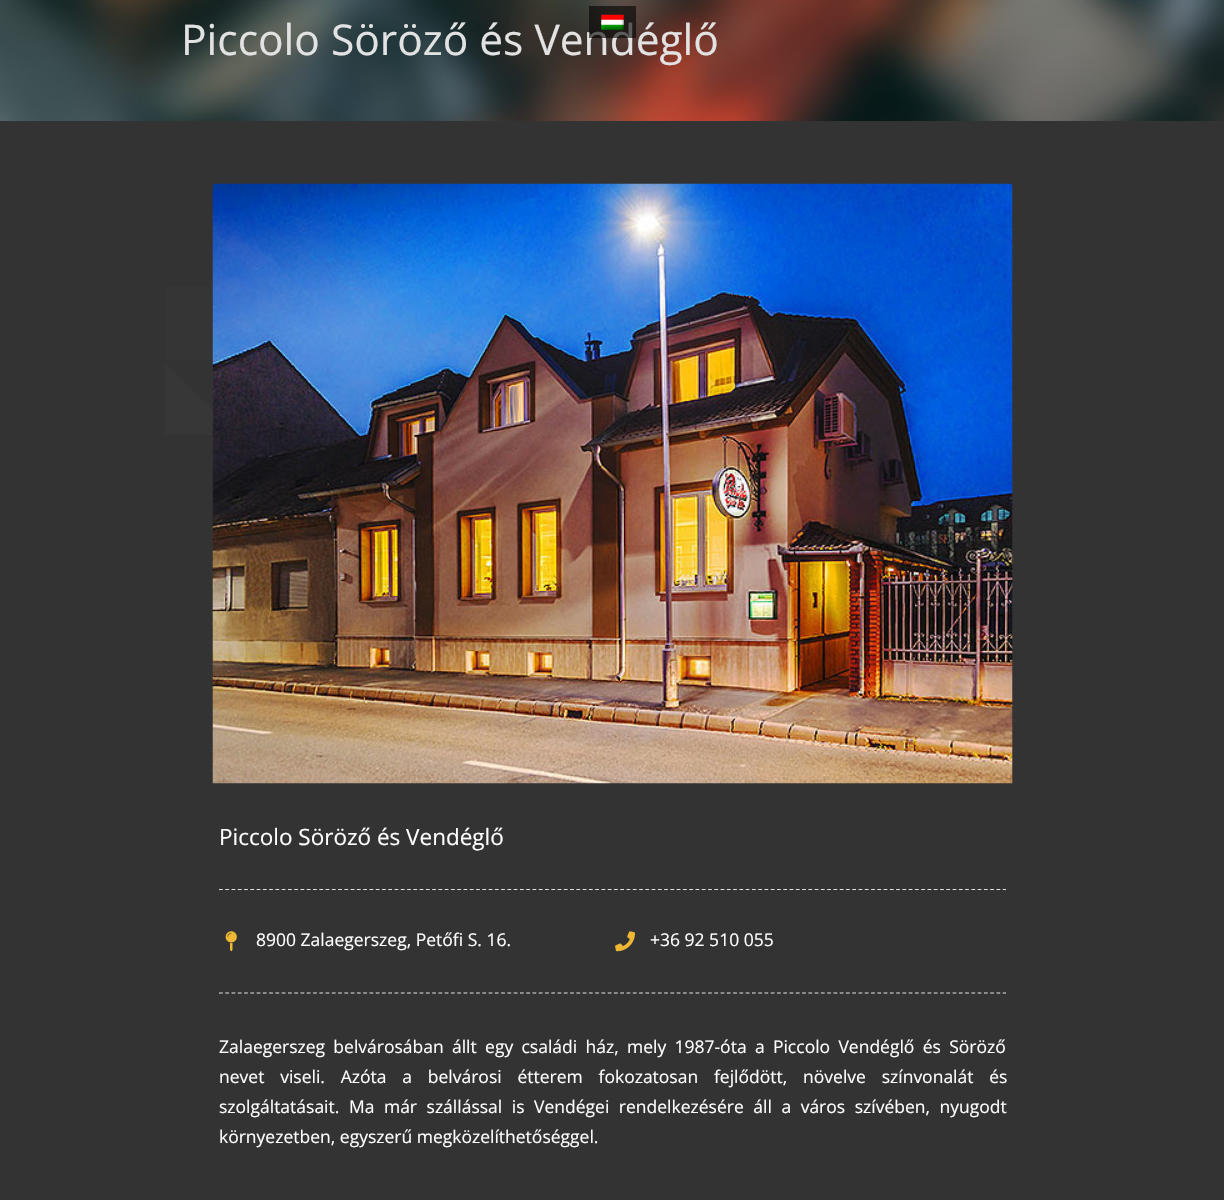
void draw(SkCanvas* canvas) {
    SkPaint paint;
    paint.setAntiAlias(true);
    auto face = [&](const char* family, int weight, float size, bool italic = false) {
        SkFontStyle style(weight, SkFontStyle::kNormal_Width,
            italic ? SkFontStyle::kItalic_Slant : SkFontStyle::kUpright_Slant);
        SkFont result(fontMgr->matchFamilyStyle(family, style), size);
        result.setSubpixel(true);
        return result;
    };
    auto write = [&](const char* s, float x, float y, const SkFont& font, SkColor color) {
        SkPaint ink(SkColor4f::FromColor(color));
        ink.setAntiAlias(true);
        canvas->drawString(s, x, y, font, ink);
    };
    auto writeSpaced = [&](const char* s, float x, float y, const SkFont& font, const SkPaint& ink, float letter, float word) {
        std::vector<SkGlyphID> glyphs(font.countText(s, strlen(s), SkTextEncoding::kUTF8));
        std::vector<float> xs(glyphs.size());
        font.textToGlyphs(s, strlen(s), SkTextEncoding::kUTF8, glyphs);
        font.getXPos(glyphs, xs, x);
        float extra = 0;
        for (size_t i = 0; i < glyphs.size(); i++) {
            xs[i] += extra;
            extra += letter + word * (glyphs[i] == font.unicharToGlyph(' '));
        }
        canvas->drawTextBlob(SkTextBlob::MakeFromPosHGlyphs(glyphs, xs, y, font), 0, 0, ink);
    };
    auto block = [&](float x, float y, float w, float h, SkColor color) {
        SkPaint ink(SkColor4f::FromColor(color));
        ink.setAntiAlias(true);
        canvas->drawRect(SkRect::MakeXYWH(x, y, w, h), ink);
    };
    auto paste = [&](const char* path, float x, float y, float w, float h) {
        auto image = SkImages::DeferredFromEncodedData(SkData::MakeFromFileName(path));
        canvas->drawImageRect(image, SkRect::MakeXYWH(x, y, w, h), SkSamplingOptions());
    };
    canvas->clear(SkColorSetRGB(51, 51, 51));
    paste("pic1.png", 165, 286, 48, 149);
    paste("pic3.png", 0, 0, 1224, 121);
    auto kFont1 = face("Open Sans", 400, 42.5f);
    write("Piccolo Söröző és Vendéglő", 181, 55, kFont1, SkColorSetRGB(226, 226, 226));
    block(589, 6, 47, 32, SkColorSetARGB(153, 0, 0, 0));
    paste("pic2.png", 601, 14, 23, 16);
    paste("pic4.png", 212, 183, 801, 601);
    auto kFont2 = face("Open Sans", 400, 22.5f);
    write("Piccolo Söröző és Vendéglő", 219, 845, kFont2, SK_ColorWHITE);
    paint.setStyle(SkPaint::kStroke_Style);
    paint.setStrokeWidth(1.2f);
    paint.setColor(SkColorSetRGB(223, 227, 230));
    paint.setPathEffect(SkDashPathEffect::Make({{3.75f, 2.52f}}, 0));
    canvas->drawPath(SkPathBuilder().moveTo(219, 889.5f).lineTo(1006, 889.5f).detach(), paint);
    paint.setPathEffect(nullptr);
    paint.setPathEffect(SkDashPathEffect::Make({{3.75f, 2.52f}}, 0));
    canvas->drawPath(SkPathBuilder().moveTo(219, 993).lineTo(1006, 993).detach(), paint);
    paint.setPathEffect(nullptr);
    paste("pic5.png", 225, 931, 12, 21);
    auto kFont3 = face("Open Sans", 400, 17.5f);
    write("8900 Zalaegerszeg, Petőfi S. 16.", 256, 946, kFont3, SK_ColorWHITE);
    paste("pic6.png", 615, 931, 20, 21);
    write("+36 92 510 055", 650, 946, kFont3, SK_ColorWHITE);
    paint.setStyle(SkPaint::kFill_Style);
    paint.setColor(SK_ColorWHITE);
    writeSpaced("Zalaegerszeg belvárosában állt egy családi ház, mely 1987-óta a Piccolo Vendéglő és Söröző", 219, 1053, kFont3, paint, 0, 3.75f);
    writeSpaced("nevet viseli. Azóta a belvárosi étterem fokozatosan fejlődött, növelve színvonalát és", 219, 1083, kFont3, paint, 0, 11.25f);
    writeSpaced("szolgáltatásait. Ma már szállással is Vendégei rendelkezésére áll a város szívében, nyugodt", 219, 1113, kFont3, paint, 0, 5);
    write("környezetben, egyszerű megközelíthetőséggel.", 219, 1143, kFont3, SK_ColorWHITE);
}
